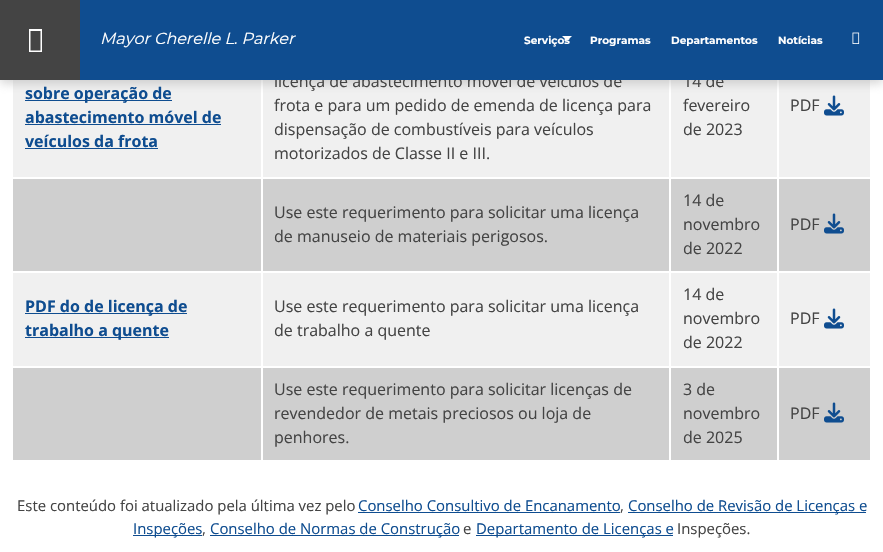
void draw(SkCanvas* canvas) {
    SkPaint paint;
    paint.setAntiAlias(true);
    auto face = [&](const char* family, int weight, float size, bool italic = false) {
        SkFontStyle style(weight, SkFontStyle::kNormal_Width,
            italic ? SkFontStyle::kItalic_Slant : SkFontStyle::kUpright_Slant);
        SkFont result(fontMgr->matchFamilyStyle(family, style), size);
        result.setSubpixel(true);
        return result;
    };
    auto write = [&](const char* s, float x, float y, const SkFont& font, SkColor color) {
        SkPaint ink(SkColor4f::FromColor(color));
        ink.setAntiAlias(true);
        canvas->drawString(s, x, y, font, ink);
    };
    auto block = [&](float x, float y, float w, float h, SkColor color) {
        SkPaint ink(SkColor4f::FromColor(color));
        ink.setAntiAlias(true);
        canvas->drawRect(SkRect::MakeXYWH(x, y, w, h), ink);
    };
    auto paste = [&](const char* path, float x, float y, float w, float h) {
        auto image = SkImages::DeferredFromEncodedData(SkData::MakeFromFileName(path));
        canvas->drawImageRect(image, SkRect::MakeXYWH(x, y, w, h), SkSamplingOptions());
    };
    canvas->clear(SK_ColorWHITE);
    block(13, 80, 857, 286, SkColorSetRGB(240, 240, 240));
    block(777, 177, 95, 2, SK_ColorWHITE);
    block(13, 179, 857, 92, SkColorSetRGB(207, 207, 207));
    block(777, 271, 95, 2, SK_ColorWHITE);
    block(13, 368, 857, 92, SkColorSetRGB(207, 207, 207));
    block(777, 366, 2, 96, SK_ColorWHITE);
    block(777, 271, 2, 97, SK_ColorWHITE);
    block(669, 271, 110, 2, SK_ColorWHITE);
    block(777, 177, 2, 96, SK_ColorWHITE);
    block(669, 177, 110, 2, SK_ColorWHITE);
    block(669, 366, 2, 96, SK_ColorWHITE);
    block(669, 271, 2, 97, SK_ColorWHITE);
    block(261, 271, 410, 2, SK_ColorWHITE);
    block(669, 177, 2, 96, SK_ColorWHITE);
    block(261, 177, 410, 2, SK_ColorWHITE);
    block(261, 366, 2, 96, SK_ColorWHITE);
    block(261, 271, 2, 97, SK_ColorWHITE);
    block(11, 271, 252, 2, SK_ColorWHITE);
    block(261, 177, 2, 96, SK_ColorWHITE);
    block(11, 177, 252, 2, SK_ColorWHITE);
    block(261, 80, 2, 99, SK_ColorWHITE);
    block(669, 80, 2, 99, SK_ColorWHITE);
    block(777, 80, 2, 99, SK_ColorWHITE);
    paste("pic2.png", 824, 95, 20, 21);
    paint.setColor(SkColorSetARGB(128, 161, 161, 161));
    paint.setMaskFilter(SkMaskFilter::MakeBlur(kNormal_SkBlurStyle, 5));
    canvas->drawRect(SkRect::MakeXYWH(0, 3, 883, 80), paint);
    paint.setMaskFilter(nullptr);
    auto kFont1 = face("Open Sans", 400, 16);
    write("licença de abastecimento móvel de veículos de", 274, 87, kFont1, SkColorSetRGB(68, 68, 68));
    write("14 de", 683, 87, kFont1, SkColorSetRGB(68, 68, 68));
    block(80, 0, 803, 80, SkColorSetRGB(15, 77, 144));
    block(0, 0, 80, 80, SkColorSetRGB(68, 68, 68));
    paint.setColor(SK_ColorWHITE);
    canvas->drawPath(SkPathBuilder().moveTo(29, 52).lineTo(29, 29).lineTo(42, 29).lineTo(42, 52).close().moveTo(30.5f, 50.5f).lineTo(40.5f, 50.5f).lineTo(40.5f, 31).lineTo(30.5f, 31).close().detach(), paint);
    auto kFont2 = face("Montserrat", 400, 16, true);
    write("Mayor Cherelle L. Parker", 100, 44, kFont2, SK_ColorWHITE);
    auto kFont3 = face("Montserrat", 700, 10.5f);
    write("Serviços", 524, 44, kFont3, SK_ColorWHITE);
    canvas->drawPath(SkPathBuilder().moveTo(562, 36).lineTo(572, 36).lineTo(567, 41).close().detach(), paint);
    write("Programas", 590, 44, kFont3, SK_ColorWHITE);
    write("Departamentos", 671, 44, kFont3, SK_ColorWHITE);
    write("Notícias", 778, 44, kFont3, SK_ColorWHITE);
    paste("pic1.png", 852, 32, 8, 12);
    block(25, 100, 147, 1, SkColorSetRGB(15, 77, 144));
    auto kFont4 = face("Open Sans", 700, 16);
    write("sobre operação de", 25, 99, kFont4, SkColorSetRGB(15, 77, 144));
    write("abastecimento móvel de", 25, 123, kFont4, SkColorSetRGB(15, 77, 144));
    block(25, 124, 196, 1, SkColorSetRGB(15, 77, 144));
    write("veículos da frota", 25, 147, kFont4, SkColorSetRGB(15, 77, 144));
    block(25, 148, 133, 1, SkColorSetRGB(15, 77, 144));
    write("frota e para um pedido de emenda de licença para", 274, 111, kFont1, SkColorSetRGB(68, 68, 68));
    write("dispensação de combustíveis para veículos", 274, 135, kFont1, SkColorSetRGB(68, 68, 68));
    write("motorizados de Classe II e III.", 274, 159, kFont1, SkColorSetRGB(68, 68, 68));
    write("fevereiro", 683, 111, kFont1, SkColorSetRGB(68, 68, 68));
    write("de 2023", 683, 135, kFont1, SkColorSetRGB(68, 68, 68));
    write("PDF", 790, 111, kFont1, SkColorSetRGB(68, 68, 68));
    write("Use este requerimento para solicitar uma licença", 274, 218, kFont1, SkColorSetRGB(68, 68, 68));
    write("de manuseio de materiais perigosos.", 274, 242, kFont1, SkColorSetRGB(68, 68, 68));
    write("14 de", 683, 206, kFont1, SkColorSetRGB(68, 68, 68));
    write("novembro", 683, 230, kFont1, SkColorSetRGB(68, 68, 68));
    write("de 2022", 683, 254, kFont1, SkColorSetRGB(68, 68, 68));
    write("PDF", 790, 230, kFont1, SkColorSetRGB(68, 68, 68));
    paste("pic3.png", 824, 213, 20, 21);
    block(25, 313, 162, 1, SkColorSetRGB(15, 77, 144));
    write("PDF do de licença de", 25, 312, kFont4, SkColorSetRGB(15, 77, 144));
    block(25, 337, 144, 1, SkColorSetRGB(15, 77, 144));
    write("trabalho a quente", 25, 336, kFont4, SkColorSetRGB(15, 77, 144));
    write("Use este requerimento para solicitar uma licença", 274, 312, kFont1, SkColorSetRGB(68, 68, 68));
    write("de trabalho a quente", 274, 336, kFont1, SkColorSetRGB(68, 68, 68));
    write("14 de", 683, 300, kFont1, SkColorSetRGB(68, 68, 68));
    write("novembro", 683, 324, kFont1, SkColorSetRGB(68, 68, 68));
    write("de 2022", 683, 348, kFont1, SkColorSetRGB(68, 68, 68));
    write("PDF", 790, 324, kFont1, SkColorSetRGB(68, 68, 68));
    paste("pic2.png", 824, 308, 20, 21);
    write("Use este requerimento para solicitar licenças de", 274, 395, kFont1, SkColorSetRGB(68, 68, 68));
    write("revendedor de metais preciosos ou loja de", 274, 419, kFont1, SkColorSetRGB(68, 68, 68));
    write("penhores.", 274, 443, kFont1, SkColorSetRGB(68, 68, 68));
    write("3 de", 683, 395, kFont1, SkColorSetRGB(68, 68, 68));
    write("novembro", 683, 419, kFont1, SkColorSetRGB(68, 68, 68));
    write("de 2025", 683, 443, kFont1, SkColorSetRGB(68, 68, 68));
    write("PDF", 790, 419, kFont1, SkColorSetRGB(68, 68, 68));
    paste("pic3.png", 824, 402, 20, 21);
    auto kFont5 = face("Open Sans", 400, 14.9f);
    write("Este conteúdo foi atualizado pela última vez pelo", 17, 511, kFont5, SkColorSetRGB(68, 68, 68));
    write("Conselho Consultivo de Encanamento", 358, 511, kFont5, SkColorSetRGB(15, 77, 144));
    block(358, 512, 262, 1, SkColorSetRGB(15, 77, 144));
    write(",", 620, 511, kFont5, SkColorSetRGB(68, 68, 68));
    block(628, 512, 238, 1, SkColorSetRGB(15, 77, 144));
    write("Conselho de Revisão de Licenças e", 628, 511, kFont5, SkColorSetRGB(15, 77, 144));
    block(133, 535, 69, 1, SkColorSetRGB(15, 77, 144));
    write("Inspeções", 133, 534, kFont5, SkColorSetRGB(15, 77, 144));
    write(",", 202, 534, kFont5, SkColorSetRGB(68, 68, 68));
    block(210, 535, 249, 1, SkColorSetRGB(15, 77, 144));
    write("Conselho de Normas de Construção", 210, 534, kFont5, SkColorSetRGB(15, 77, 144));
    write("e", 463, 534, kFont5, SkColorSetRGB(68, 68, 68));
    block(476, 535, 197, 1, SkColorSetRGB(15, 77, 144));
    write("Departamento de Licenças e", 476, 534, kFont5, SkColorSetRGB(15, 77, 144));
    write("Inspeções.", 677, 534, kFont5, SkColorSetRGB(68, 68, 68));
}
